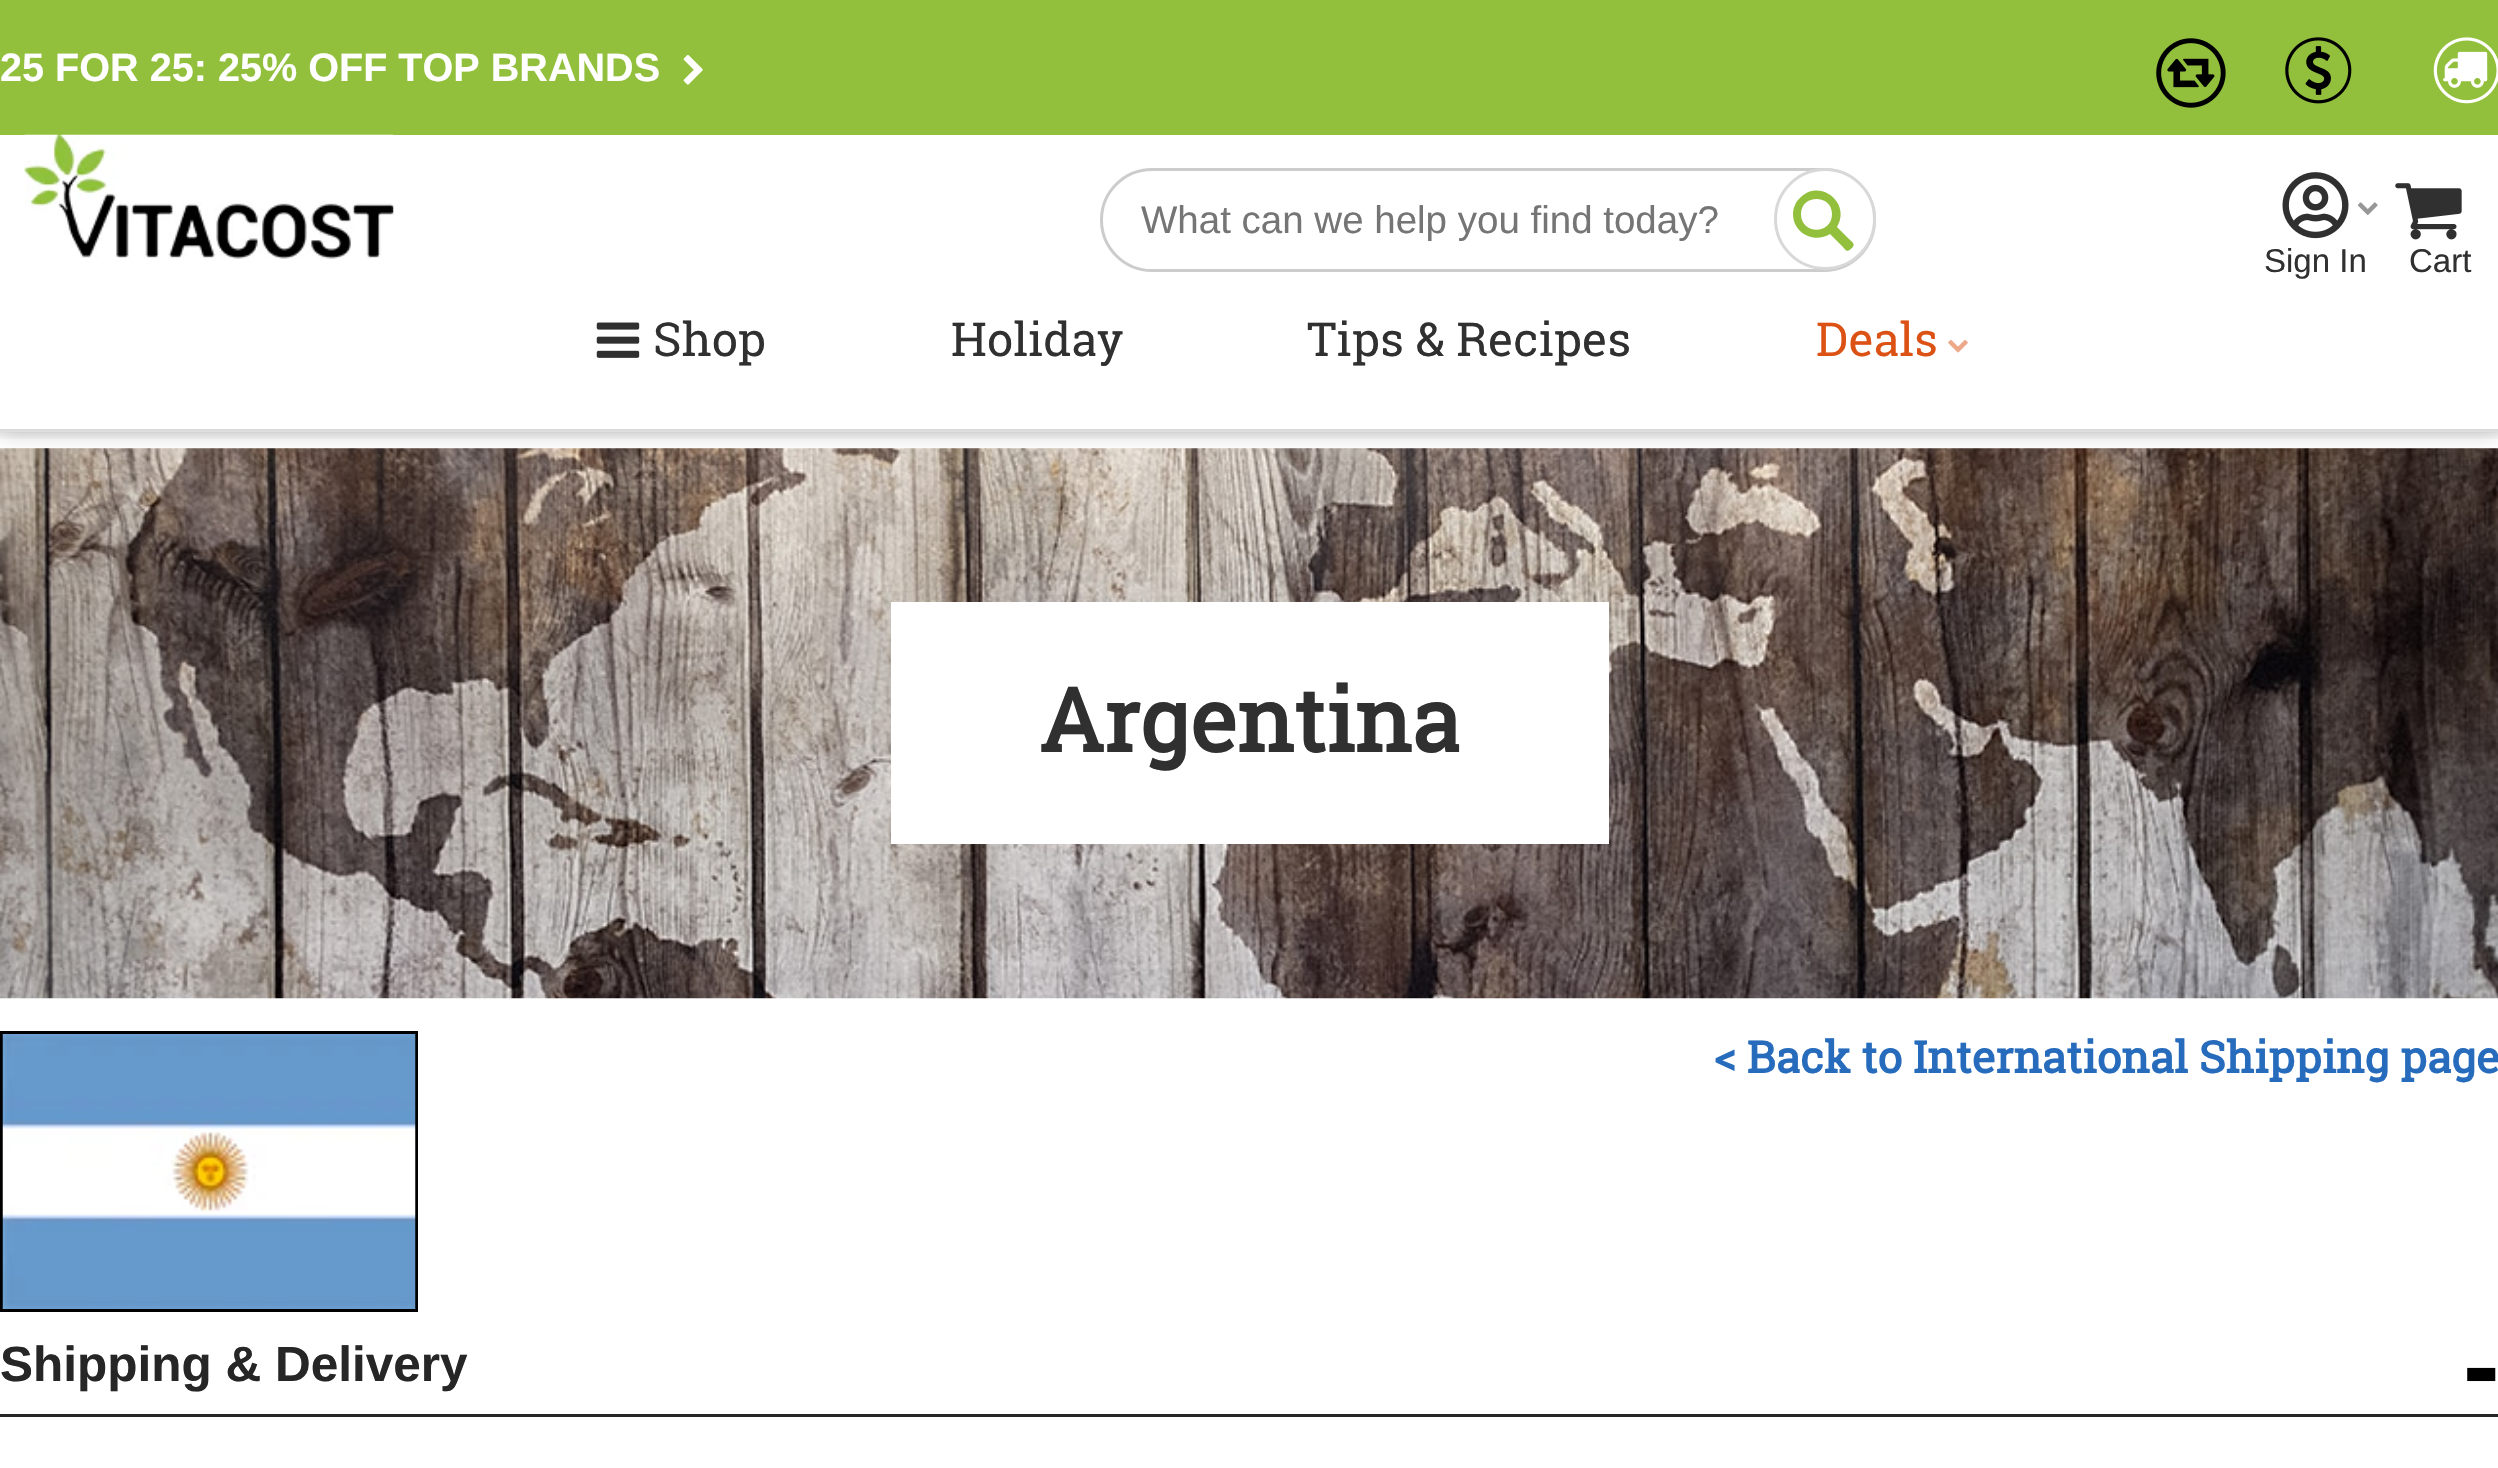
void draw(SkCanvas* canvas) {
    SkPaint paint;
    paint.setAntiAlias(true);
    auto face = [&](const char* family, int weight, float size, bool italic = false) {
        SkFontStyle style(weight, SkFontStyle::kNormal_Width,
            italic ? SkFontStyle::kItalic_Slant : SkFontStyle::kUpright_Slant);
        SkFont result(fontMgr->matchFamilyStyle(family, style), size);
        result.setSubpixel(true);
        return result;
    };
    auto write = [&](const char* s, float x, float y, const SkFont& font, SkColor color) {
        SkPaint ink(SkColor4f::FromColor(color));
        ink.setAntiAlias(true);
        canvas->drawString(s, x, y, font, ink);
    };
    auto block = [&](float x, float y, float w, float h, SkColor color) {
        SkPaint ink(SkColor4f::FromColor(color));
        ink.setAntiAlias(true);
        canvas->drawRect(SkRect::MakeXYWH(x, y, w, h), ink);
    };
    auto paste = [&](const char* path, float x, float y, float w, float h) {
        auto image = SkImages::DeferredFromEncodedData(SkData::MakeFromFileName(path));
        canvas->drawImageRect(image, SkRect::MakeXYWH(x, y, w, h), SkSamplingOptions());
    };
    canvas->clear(SK_ColorWHITE);
    paint.setColor(SkColorSetRGB(200, 200, 200));
    paint.setMaskFilter(SkMaskFilter::MakeBlur(kNormal_SkBlurStyle, 11));
    canvas->drawRect(SkRect::MakeXYWH(0, 0, 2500, 432), paint);
    paint.setMaskFilter(nullptr);
    block(0, 135, 2498, 294, SK_ColorWHITE);
    block(0, 429, 2498, 3, SkColorSetRGB(241, 241, 241));
    block(0, 0, 2498, 135, SkColorSetRGB(146, 192, 60));
    auto kFont1 = face("Liberation Sans", 700, 39.6f);
    write("25 FOR 25: 25% OFF TOP BRANDS", 0, 81, kFont1, SK_ColorWHITE);
    paste("pic1.png", 683, 55, 20, 30);
    paste("pic2.png", 2156, 38, 70, 70);
    paste("pic3.png", 2285, 37, 67, 67);
    paste("pic4.png", 2433, 37, 65, 67);
    paste("pic5.png", 24, 134, 370, 125);
    paint.setStyle(SkPaint::kStroke_Style);
    paint.setStrokeWidth(3);
    paint.setColor(SkColorSetRGB(204, 204, 204));
    canvas->drawRoundRect(SkRect::MakeXYWH(1101.5f, 169.5f, 773, 101), 50.5f, 50.5f, paint);
    auto kFont2 = face("Liberation Sans", 400, 38.5f);
    write("What can we help you find today?", 1141, 233, kFont2, SkColorSetRGB(117, 117, 117));
    paint.setStyle(SkPaint::kFill_Style);
    paint.setColor(SK_ColorWHITE);
    canvas->drawCircle(1825, 219, 49.5f, paint);
    paint.setStyle(SkPaint::kStroke_Style);
    paint.setColor(SkColorSetRGB(216, 216, 216));
    canvas->drawCircle(1825, 219, 49.5f, paint);
    paint.setStyle(SkPaint::kFill_Style);
    paint.setColor(SkColorSetRGB(146, 192, 60));
    canvas->drawPath(SkPathBuilder().moveTo(1793, 214).cubicTo(1793, 233, 1814, 244, 1830, 234).lineTo(1841, 245).cubicTo(1847, 251, 1846, 253, 1852, 248).cubicTo(1856, 244, 1852, 242, 1848, 238).lineTo(1837, 227).cubicTo(1852, 202, 1818, 177, 1799, 199).cubicTo(1795, 203, 1793, 209, 1793, 214).close().moveTo(1801, 214).cubicTo(1801, 194, 1832, 194, 1832, 214).cubicTo(1832, 235, 1801, 235, 1801, 214).close().detach(), paint);
    paste("pic6.png", 2282, 172, 67, 67);
    paste("pic7.png", 2357, 202, 21, 13);
    auto kFont3 = face("Liberation Sans", 400, 33);
    write("Sign In", 2264, 272, kFont3, SkColorSetRGB(48, 48, 48));
    paste("pic8.png", 2395, 183, 67, 57);
    write("Cart", 2409, 272, kFont3, SkColorSetRGB(48, 48, 48));
    paste("pic9.png", 596, 322, 44, 36);
    auto kFont4 = face("Roboto Slab", 400, 46.75f);
    write("Shop", 653, 356, kFont4, SkColorSetRGB(48, 48, 48));
    write("Holiday", 951, 356, kFont4, SkColorSetRGB(48, 48, 48));
    write("Tips & Recipes", 1307, 356, kFont4, SkColorSetRGB(48, 48, 48));
    write("Deals", 1816, 356, kFont4, SkColorSetRGB(220, 82, 21));
    paste("pic10.png", 1948, 340, 20, 13);
    {
        const SkColor colors[] = {SkColorSetARGB(26, 0, 0, 0), SkColorSetARGB(13, 0, 0, 0), SkColorSetARGB(0, 0, 0, 0)};
        const float stops[] = {0, 0.35f, 1};
        const SkPoint ends[] = {{1250, 429}, {1250, 443}};
        paint.setShader(SkGradientShader::MakeLinear(ends, colors, stops, 3, SkTileMode::kClamp));
        paint.setAlpha(255);
    }
    canvas->drawRect(SkRect::MakeXYWH(0, 429, 2498, 10), paint);
    paste("pic11.png", 0, 448, 2498, 551);
    block(891, 602, 718, 242, SK_ColorWHITE);
    auto kFont5 = face("Roboto Slab", 700, 88);
    write("Argentina", 1039, 752, kFont5, SkColorSetRGB(48, 48, 48));
    paint.setStyle(SkPaint::kStroke_Style);
    paint.setShader(nullptr);
    paint.setColor(SK_ColorBLACK);
    canvas->drawRect(SkRect::MakeXYWH(1.5f, 1032.5f, 415, 278), paint);
    paste("pic12.png", 2, 1034, 414, 275);
    auto kFont6 = face("Roboto Slab", 700, 44);
    write("< Back to International Shipping page", 1714, 1073, kFont6, SkColorSetRGB(39, 108, 188));
    block(0, 1414, 2498, 3, SkColorSetRGB(38, 38, 38));
    auto kFont7 = face("Liberation Sans", 700, 49.5f);
    write("Shipping & Delivery", 0, 1381, kFont7, SkColorSetRGB(38, 38, 38));
    auto kFont8 = face("Liberation Sans", 700, 110);
    write("-", 2463, 1403, kFont8, SK_ColorBLACK);
}
